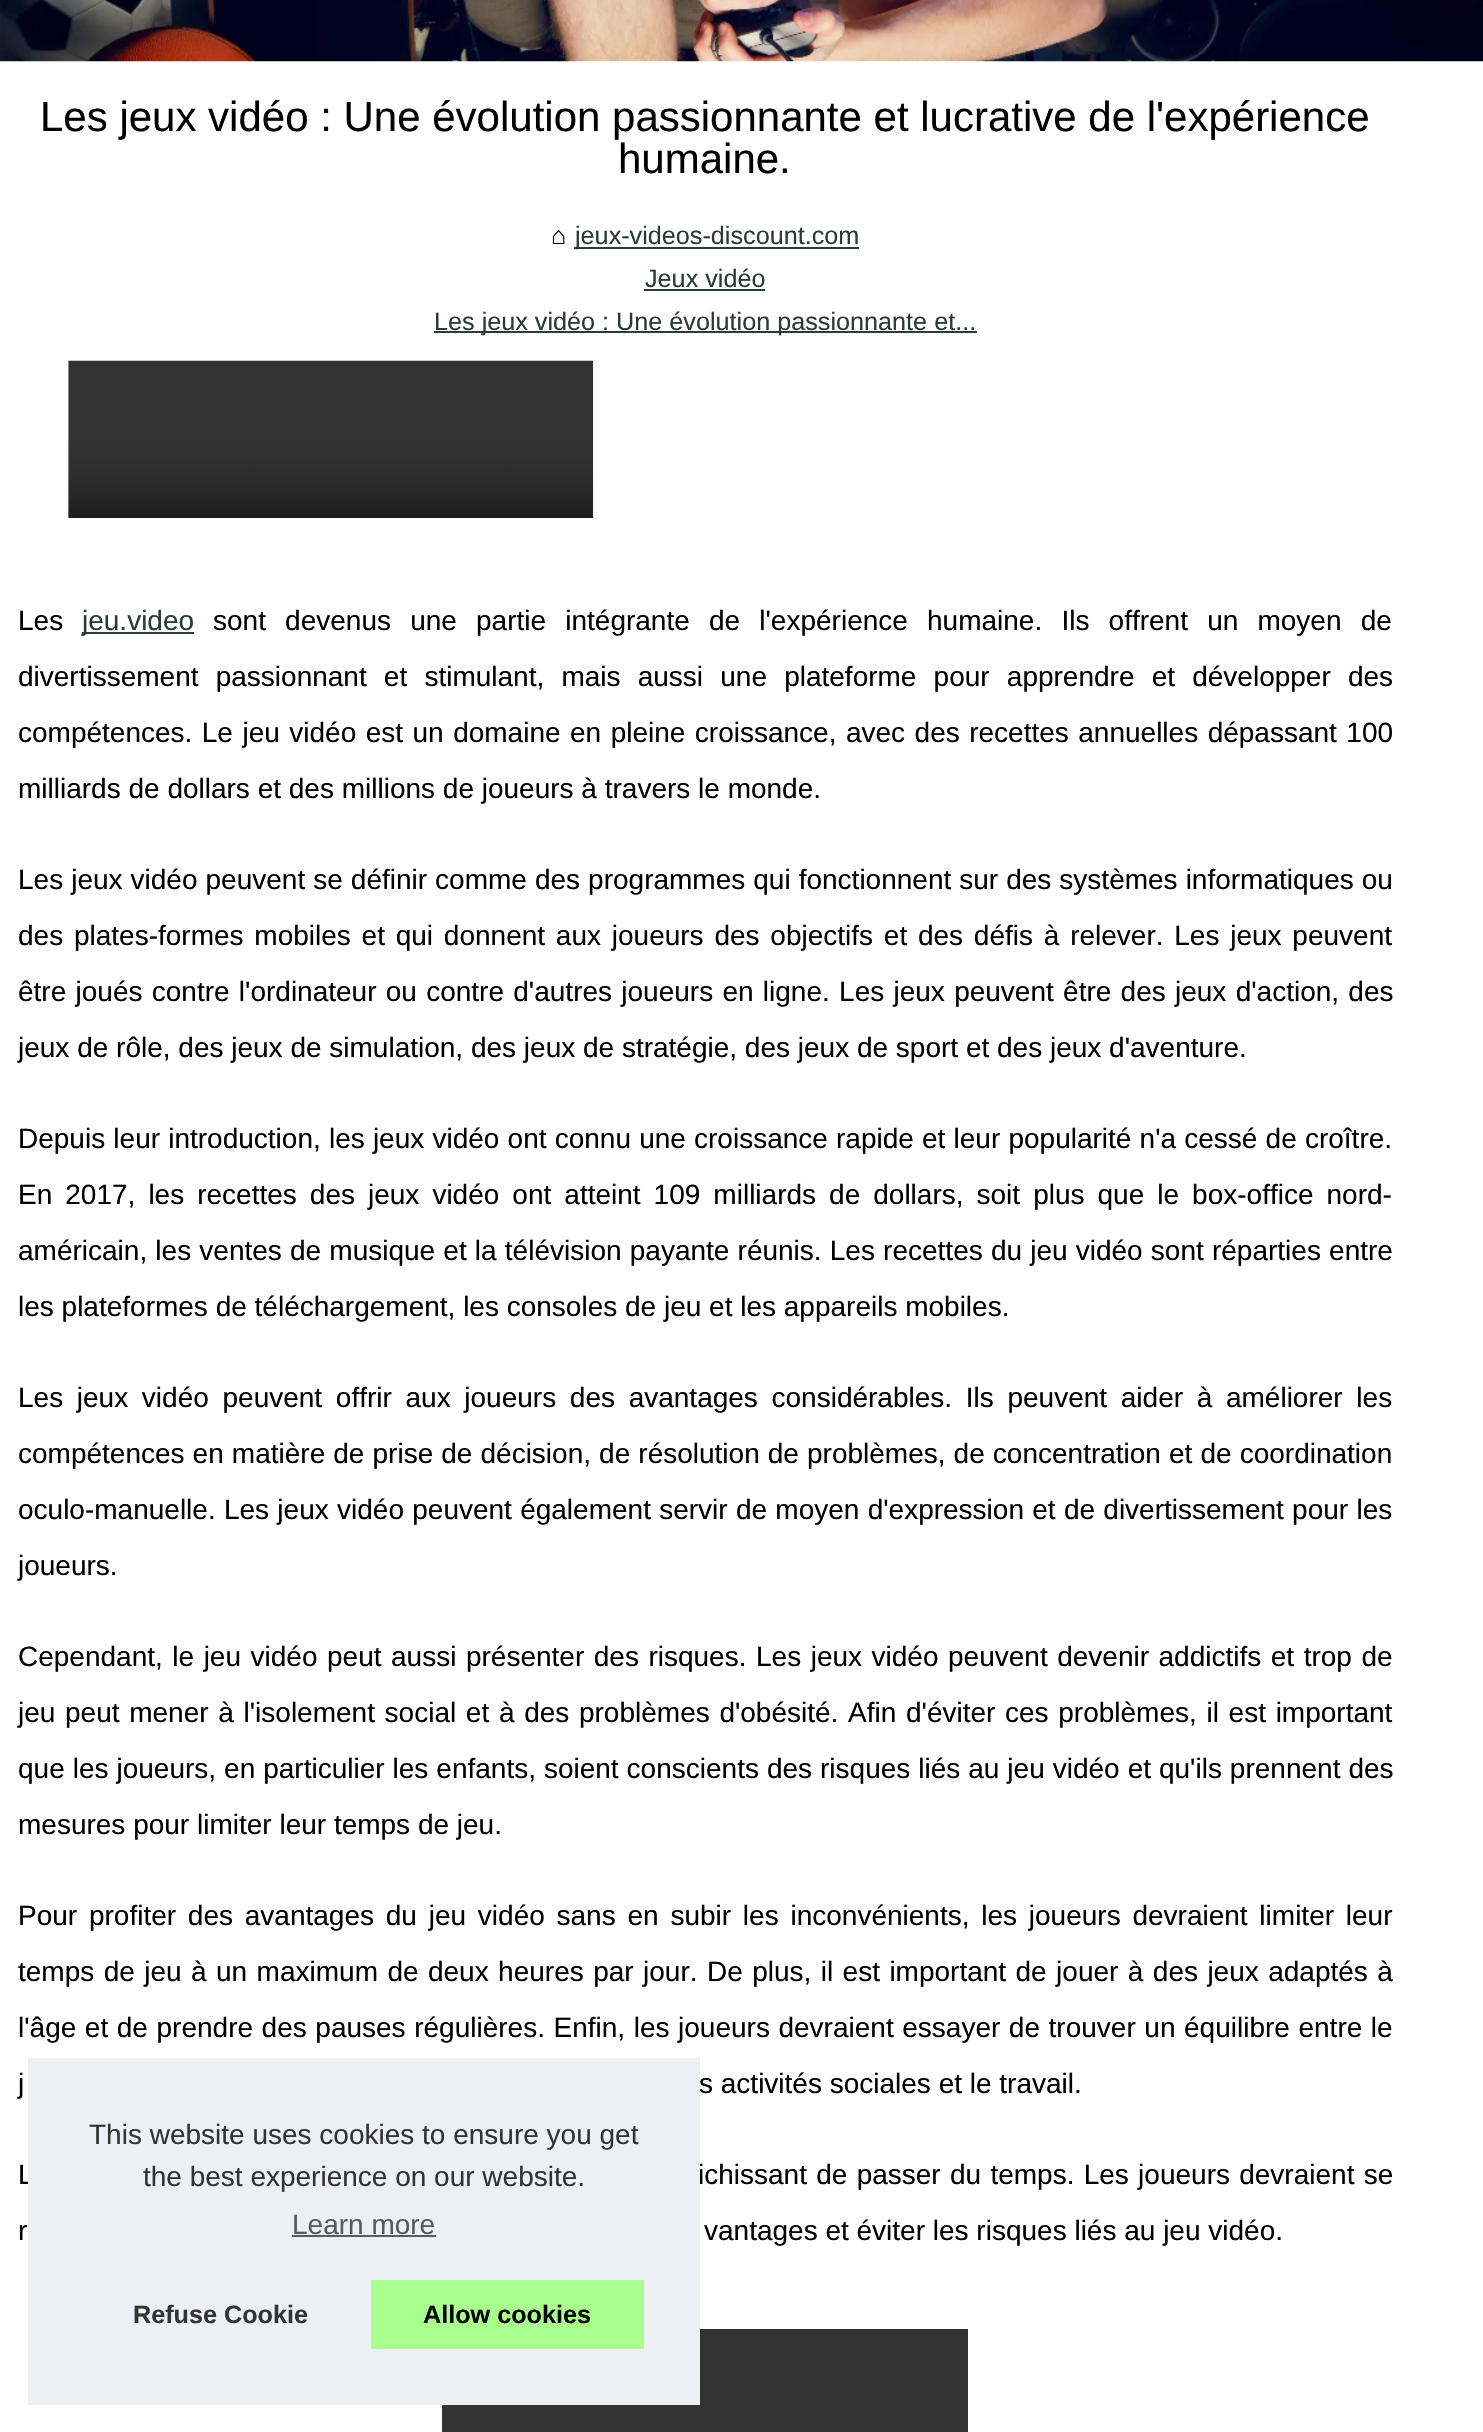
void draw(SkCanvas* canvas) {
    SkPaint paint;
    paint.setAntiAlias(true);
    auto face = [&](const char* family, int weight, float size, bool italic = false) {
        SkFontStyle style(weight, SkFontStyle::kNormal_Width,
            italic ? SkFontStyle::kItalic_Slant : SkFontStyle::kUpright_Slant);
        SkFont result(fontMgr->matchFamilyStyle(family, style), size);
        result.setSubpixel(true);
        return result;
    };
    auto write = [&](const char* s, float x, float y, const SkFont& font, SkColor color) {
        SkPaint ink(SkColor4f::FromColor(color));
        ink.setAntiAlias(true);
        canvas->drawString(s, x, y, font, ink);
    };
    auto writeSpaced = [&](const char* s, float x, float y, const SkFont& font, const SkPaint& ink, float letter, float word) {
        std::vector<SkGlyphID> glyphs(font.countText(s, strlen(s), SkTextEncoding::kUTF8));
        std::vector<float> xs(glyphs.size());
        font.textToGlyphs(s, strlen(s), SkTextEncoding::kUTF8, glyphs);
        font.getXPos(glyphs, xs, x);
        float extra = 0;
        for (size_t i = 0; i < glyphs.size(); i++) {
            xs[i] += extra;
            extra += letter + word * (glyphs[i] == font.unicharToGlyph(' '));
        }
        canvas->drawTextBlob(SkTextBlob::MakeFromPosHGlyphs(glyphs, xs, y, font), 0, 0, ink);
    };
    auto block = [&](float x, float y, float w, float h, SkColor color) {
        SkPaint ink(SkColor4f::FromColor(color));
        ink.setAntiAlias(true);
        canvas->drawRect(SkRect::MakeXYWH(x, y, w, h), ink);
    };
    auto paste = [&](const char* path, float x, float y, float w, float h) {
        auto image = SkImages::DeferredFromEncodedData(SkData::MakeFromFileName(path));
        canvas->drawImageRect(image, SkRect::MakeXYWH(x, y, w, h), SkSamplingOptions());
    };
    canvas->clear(SK_ColorWHITE);
    paste("pic1.png", 0, 0, 1483, 62);
    auto kFont1 = face("Liberation Sans", 400, 42);
    write("Les jeux vidéo : Une évolution passionnante et lucrative de l'expérience", 40, 131, kFont1, SK_ColorBLACK);
    write("humaine.", 618, 173, kFont1, SK_ColorBLACK);
    auto kFont2 = face("Liberation Sans", 400, 25.2f);
    write("⌂", 551, 244, kFont2, SK_ColorBLACK);
    block(574, 247, 285, 2, SkColorSetRGB(40, 59, 54));
    write("jeux-videos-discount.com", 575, 244, kFont2, SkColorSetRGB(40, 59, 54));
    write("Jeux vidéo", 645, 287, kFont2, SkColorSetRGB(40, 59, 54));
    block(644, 289, 121, 2, SkColorSetRGB(40, 59, 54));
    block(434, 331, 543, 2, SkColorSetRGB(40, 59, 54));
    write("Les jeux vidéo : Une évolution passionnante et...", 434, 330, kFont2, SkColorSetRGB(40, 59, 54));
    paste("pic2.png", 68, 360, 526, 158);
    auto kFont3 = face("Liberation Sans", 400, 28);
    write("Les", 18, 630, kFont3, SK_ColorBLACK);
    block(82, 632, 112, 2, SkColorSetRGB(40, 59, 54));
    write("jeu.video", 82, 630, kFont3, SkColorSetRGB(40, 59, 54));
    paint.setColor(SK_ColorBLACK);
    writeSpaced("sont devenus une partie intégrante de l'expérience humaine. Ils offrent un moyen de", 213, 630, kFont3, paint, 0, 11.4f);
    writeSpaced("divertissement passionnant et stimulant, mais aussi une plateforme pour apprendre et développer des", 18, 686, kFont3, paint, 0, 9.4f);
    writeSpaced("compétences. Le jeu vidéo est un domaine en pleine croissance, avec des recettes annuelles dépassant 100", 18, 742, kFont3, paint, 0, 1.7f);
    write("milliards de dollars et des millions de joueurs à travers le monde.", 18, 798, kFont3, SK_ColorBLACK);
    writeSpaced("Les jeux vidéo peuvent se définir comme des programmes qui fonctionnent sur des systèmes informatiques ou", 18, 889, kFont3, paint, 0, 0.25f);
    writeSpaced("des plates-formes mobiles et qui donnent aux joueurs des objectifs et des défis à relever. Les jeux peuvent", 18, 945, kFont3, paint, 0, 3);
    writeSpaced("être joués contre l'ordinateur ou contre d'autres joueurs en ligne. Les jeux peuvent être des jeux d'action, des", 18, 1001, kFont3, paint, 0, 1.5f);
    write("jeux de rôle, des jeux de simulation, des jeux de stratégie, des jeux de sport et des jeux d'aventure.", 18, 1057, kFont3, SK_ColorBLACK);
    writeSpaced("Depuis leur introduction, les jeux vidéo ont connu une croissance rapide et leur popularité n'a cessé de croître.", 18, 1148, kFont3, paint, 0, 0.4f);
    writeSpaced("En 2017, les recettes des jeux vidéo ont atteint 109 milliards de dollars, soit plus que le box-office nord-", 18, 1204, kFont3, paint, 0, 5.25f);
    writeSpaced("américain, les ventes de musique et la télévision payante réunis. Les recettes du jeu vidéo sont réparties entre", 18, 1260, kFont3, paint, 0, 0.4f);
    write("les plateformes de téléchargement, les consoles de jeu et les appareils mobiles.", 18, 1316, kFont3, SK_ColorBLACK);
    writeSpaced("Les jeux vidéo peuvent offrir aux joueurs des avantages considérables. Ils peuvent aider à améliorer les", 18, 1407, kFont3, paint, 0, 5.9f);
    writeSpaced("compétences en matière de prise de décision, de résolution de problèmes, de concentration et de coordination", 18, 1463, kFont3, paint, 0, 0.3f);
    writeSpaced("oculo-manuelle. Les jeux vidéo peuvent également servir de moyen d'expression et de divertissement pour les", 18, 1519, kFont3, paint, 0, 0.5f);
    write("joueurs.", 18, 1575, kFont3, SK_ColorBLACK);
    writeSpaced("Cependant, le jeu vidéo peut aussi présenter des risques. Les jeux vidéo peuvent devenir addictifs et trop de", 18, 1666, kFont3, paint, 0, 1.75f);
    writeSpaced("jeu peut mener à l'isolement social et à des problèmes d'obésité. Afin d'éviter ces problèmes, il est important", 18, 1722, kFont3, paint, 0, 1.9f);
    writeSpaced("que les joueurs, en particulier les enfants, soient conscients des risques liés au jeu vidéo et qu'ils prennent des", 18, 1778, kFont3, paint, 0, 0.2f);
    write("mesures pour limiter leur temps de jeu.", 18, 1834, kFont3, SK_ColorBLACK);
    writeSpaced("Pour profiter des avantages du jeu vidéo sans en subir les inconvénients, les joueurs devraient limiter leur", 18, 1925, kFont3, paint, 0, 4);
    writeSpaced("temps de jeu à un maximum de deux heures par jour. De plus, il est important de jouer à des jeux adaptés à", 18, 1981, kFont3, paint, 0, 1.65f);
    writeSpaced("l'âge et de prendre des pauses régulières. Enfin, les joueurs devraient essayer de trouver un équilibre entre le", 18, 2037, kFont3, paint, 0, 0.8f);
    write("j", 18, 2093, kFont3, SK_ColorBLACK);
    write("s activités sociales et le travail.", 699, 2093, kFont3, SK_ColorBLACK);
    writeSpaced("L", 18, 2184, kFont3, paint, 0, 1.5f);
    writeSpaced("ichissant de passer du temps. Les joueurs devraient se", 698, 2184, kFont3, paint, 0, 1.5f);
    write("r", 18, 2240, kFont3, SK_ColorBLACK);
    write("vantages et éviter les risques liés au jeu vidéo.", 704, 2240, kFont3, SK_ColorBLACK);
    block(442, 2329, 526, 103, SkColorSetRGB(51, 51, 51));
    block(28, 2058, 672, 347, SkColorSetRGB(237, 239, 245));
    write("This website uses cookies to ensure you get", 89, 2144, kFont3, SkColorSetRGB(51, 51, 51));
    write("the best experience on our website.", 143, 2186, kFont3, SkColorSetRGB(51, 51, 51));
    write("Learn more", 292, 2234, kFont3, SkColorSetRGB(88, 89, 90));
    block(292, 2235, 144, 2, SkColorSetRGB(88, 89, 90));
    auto kFont4 = face("Liberation Sans", 700, 25.2f);
    write("Refuse Cookie", 133, 2323, kFont4, SkColorSetRGB(51, 51, 51));
    block(371, 2280, 273, 69, SkColorSetRGB(168, 255, 140));
    write("Allow cookies", 423, 2323, kFont4, SK_ColorBLACK);
}
